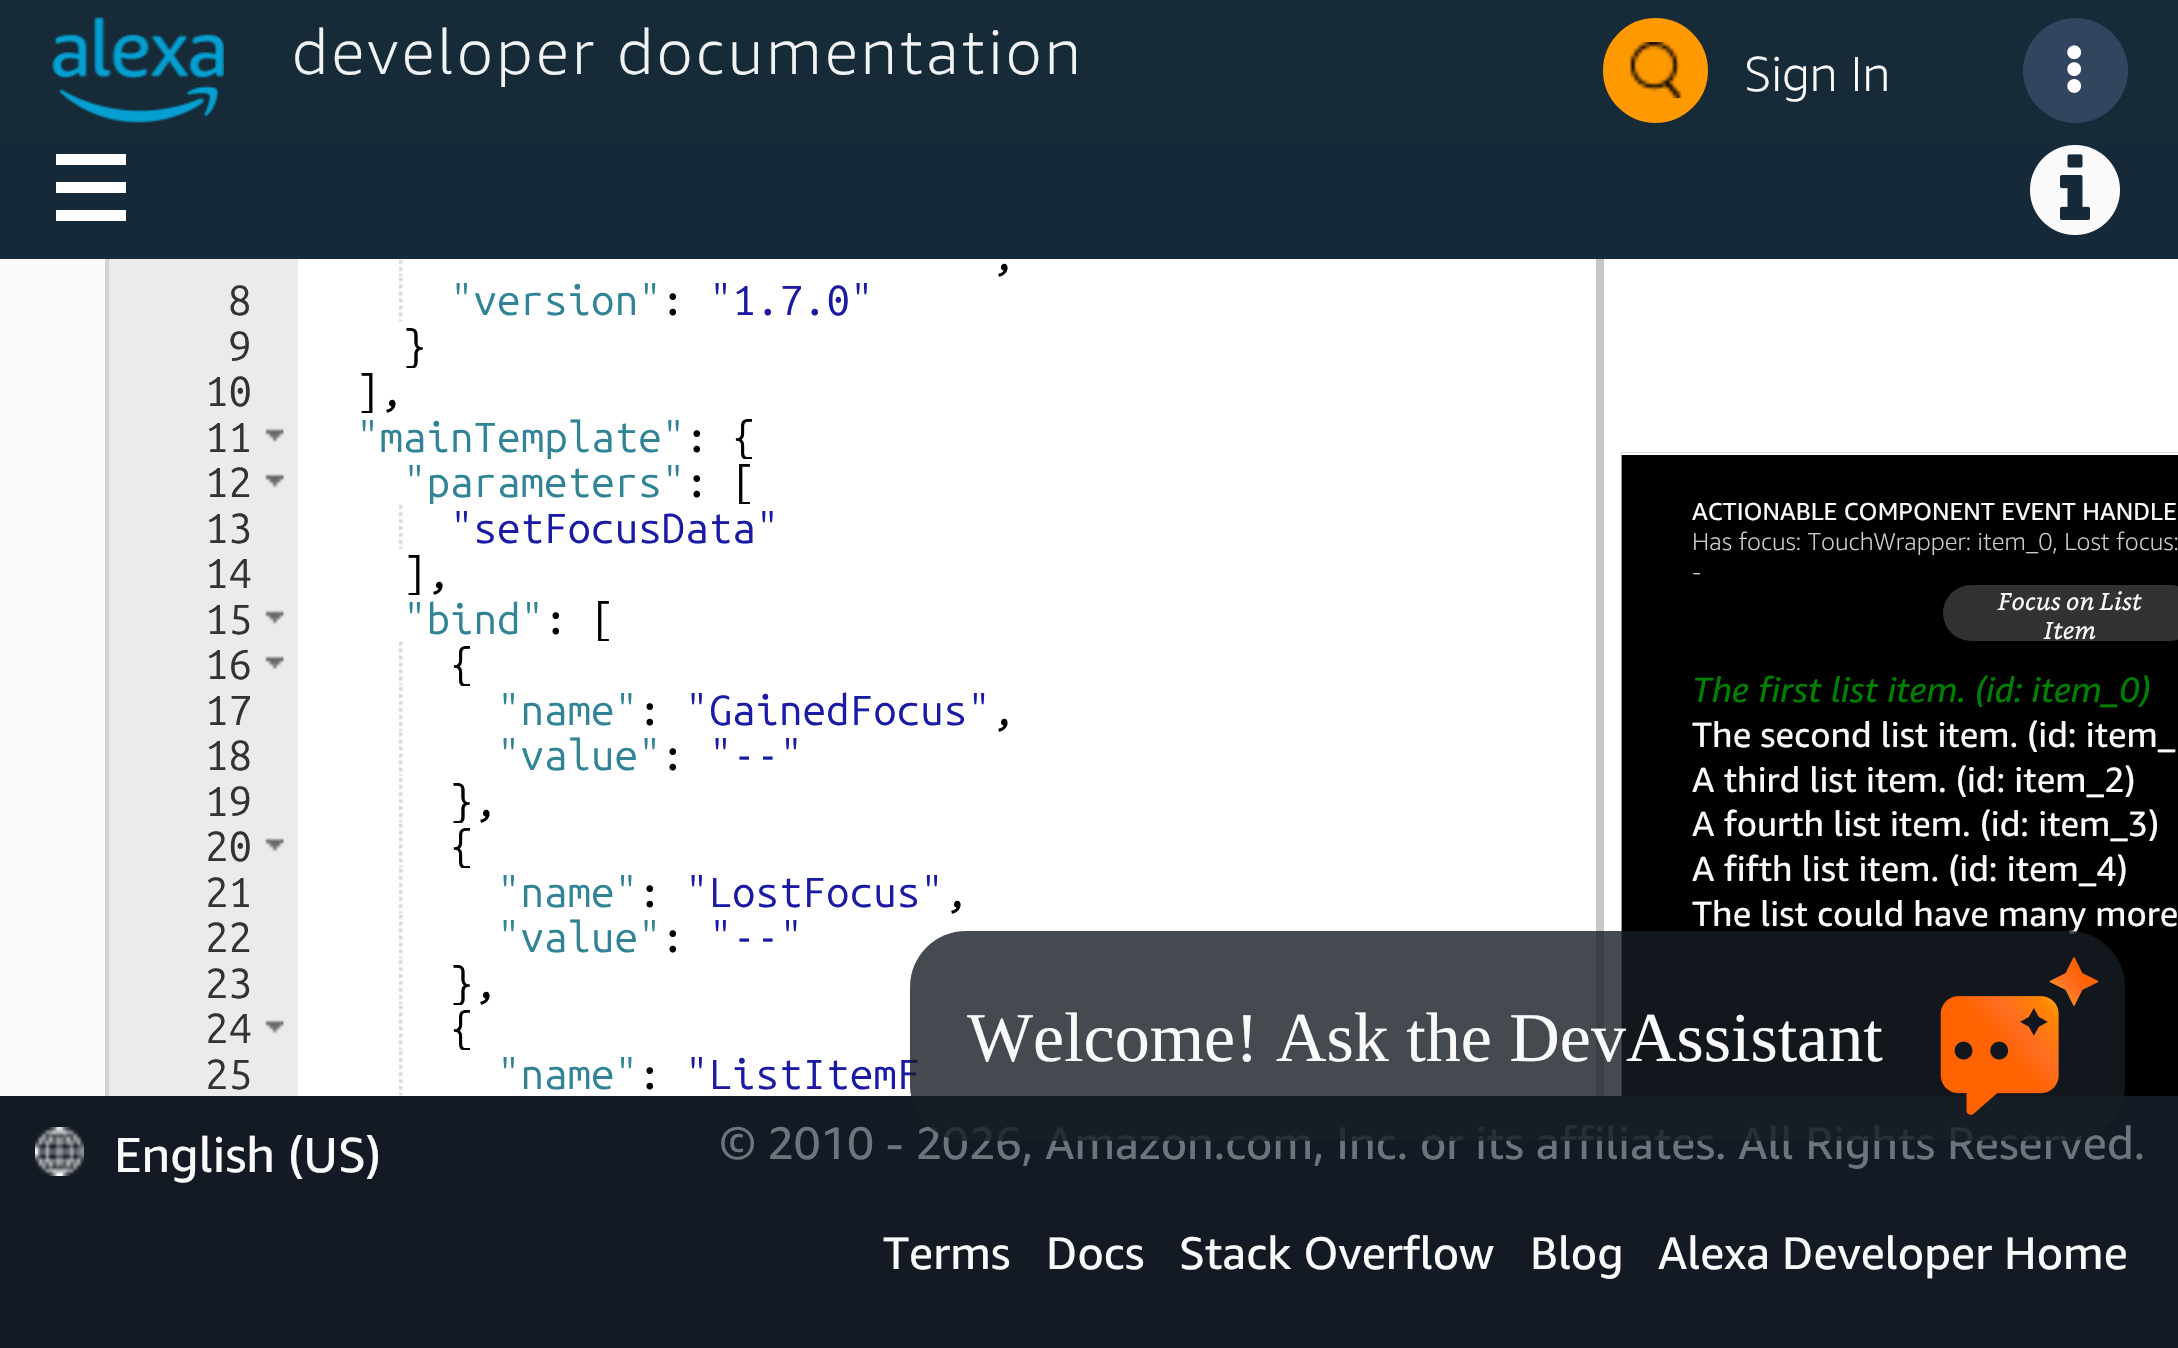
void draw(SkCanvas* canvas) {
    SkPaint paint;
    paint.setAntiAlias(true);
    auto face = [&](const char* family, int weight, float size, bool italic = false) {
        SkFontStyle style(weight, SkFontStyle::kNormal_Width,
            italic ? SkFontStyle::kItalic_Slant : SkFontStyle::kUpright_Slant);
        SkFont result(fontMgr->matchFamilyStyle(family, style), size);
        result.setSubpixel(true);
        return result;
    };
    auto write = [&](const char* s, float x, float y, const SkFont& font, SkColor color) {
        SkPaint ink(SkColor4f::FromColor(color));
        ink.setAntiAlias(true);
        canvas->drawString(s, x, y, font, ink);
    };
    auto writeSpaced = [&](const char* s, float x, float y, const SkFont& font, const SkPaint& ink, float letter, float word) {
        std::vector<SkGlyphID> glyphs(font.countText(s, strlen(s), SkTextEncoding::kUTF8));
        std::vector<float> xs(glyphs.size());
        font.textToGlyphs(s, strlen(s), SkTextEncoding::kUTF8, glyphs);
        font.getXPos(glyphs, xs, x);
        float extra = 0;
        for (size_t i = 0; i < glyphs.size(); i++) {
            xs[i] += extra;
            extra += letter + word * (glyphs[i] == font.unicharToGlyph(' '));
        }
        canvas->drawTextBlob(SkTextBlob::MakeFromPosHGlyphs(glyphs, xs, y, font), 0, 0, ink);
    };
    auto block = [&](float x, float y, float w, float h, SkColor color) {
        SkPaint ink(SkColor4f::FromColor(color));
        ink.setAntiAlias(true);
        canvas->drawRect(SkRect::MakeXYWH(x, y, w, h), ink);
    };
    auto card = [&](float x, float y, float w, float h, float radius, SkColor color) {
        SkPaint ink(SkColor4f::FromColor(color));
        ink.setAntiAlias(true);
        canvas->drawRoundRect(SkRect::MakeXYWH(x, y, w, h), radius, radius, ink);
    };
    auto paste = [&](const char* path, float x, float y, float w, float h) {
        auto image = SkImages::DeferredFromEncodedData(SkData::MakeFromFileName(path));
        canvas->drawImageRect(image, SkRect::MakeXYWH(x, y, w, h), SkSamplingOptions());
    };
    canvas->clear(SkColorSetRGB(250, 250, 250));
    block(0, 140, 2178, 119, SkColorSetRGB(21, 41, 57));
    block(56, 154, 70, 11, SK_ColorWHITE);
    block(56, 182, 70, 11, SK_ColorWHITE);
    block(56, 210, 70, 11, SK_ColorWHITE);
    block(298, 259, 1880, 837, SK_ColorWHITE);
    canvas->save();
    canvas->clipRect(SkRect::MakeXYWH(0, 259, 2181, 861));
    paint.setStyle(SkPaint::kStroke_Style);
    paint.setStrokeWidth(4);
    paint.setColor(SkColorSetRGB(211, 211, 211));
    canvas->drawRect(SkRect::MakeXYWH(107, -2, 1491, 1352), paint);
    canvas->restore();
    block(0, 0, 2178, 140, SkColorSetRGB(22, 42, 56));
    paste("pic1.png", 52, 17, 172, 106);
    auto kFont1 = face("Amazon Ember", 300, 63);
    paint.setStyle(SkPaint::kFill_Style);
    paint.setColor(SkColorSetRGB(241, 242, 243));
    writeSpaced("developer documentation", 292, 74, kFont1, paint, 3.5f, 0);
    paint.setColor(SkColorSetRGB(255, 153, 0));
    canvas->drawCircle(1655.5f, 70.5f, 49, paint);
    paint.setStyle(SkPaint::kStroke_Style);
    paint.setStrokeWidth(7);
    canvas->drawCircle(1655.5f, 70.5f, 49, paint);
    paste("pic2.png", 1629, 42, 53, 56);
    auto kFont2 = face("Amazon Ember", 300, 49);
    write("Sign In", 1744, 91, kFont2, SkColorSetRGB(250, 250, 250));
    paint.setStyle(SkPaint::kFill_Style);
    paint.setColor(SkColorSetRGB(49, 69, 94));
    canvas->drawCircle(2075.5f, 70.5f, 52.5f, paint);
    paste("pic3.png", 2067, 45, 15, 48);
    paste("pic4.png", 2030, 145, 90, 90);
    block(109, 259, 189, 837, SkColorSetRGB(235, 235, 235));
    auto kFont3 = face("Ubuntu Mono", 400, 42);
    write("8", 228, 315, kFont3, SkColorSetRGB(51, 51, 51));
    write("9", 228, 361, kFont3, SkColorSetRGB(51, 51, 51));
    write("10", 205, 406, kFont3, SkColorSetRGB(51, 51, 51));
    write("11", 205, 452, kFont3, SkColorSetRGB(51, 51, 51));
    paste("pic5.png", 265, 428, 19, 15);
    write("12", 205, 497, kFont3, SkColorSetRGB(51, 51, 51));
    paste("pic6.png", 265, 474, 19, 14);
    write("13", 205, 543, kFont3, SkColorSetRGB(51, 51, 51));
    write("14", 205, 588, kFont3, SkColorSetRGB(51, 51, 51));
    write("15", 205, 634, kFont3, SkColorSetRGB(51, 51, 51));
    paste("pic5.png", 265, 610, 19, 15);
    write("16", 205, 679, kFont3, SkColorSetRGB(51, 51, 51));
    paste("pic6.png", 265, 656, 19, 14);
    write("17", 205, 725, kFont3, SkColorSetRGB(51, 51, 51));
    write("18", 205, 770, kFont3, SkColorSetRGB(51, 51, 51));
    write("19", 205, 816, kFont3, SkColorSetRGB(51, 51, 51));
    write("20", 205, 861, kFont3, SkColorSetRGB(51, 51, 51));
    paste("pic7.png", 265, 838, 19, 14);
    write("21", 205, 907, kFont3, SkColorSetRGB(51, 51, 51));
    write("22", 205, 952, kFont3, SkColorSetRGB(51, 51, 51));
    write("23", 205, 998, kFont3, SkColorSetRGB(51, 51, 51));
    write("24", 205, 1043, kFont3, SkColorSetRGB(51, 51, 51));
    paste("pic7.png", 265, 1020, 19, 14);
    write("25", 205, 1089, kFont3, SkColorSetRGB(51, 51, 51));
    paste("pic8.png", 399, 259, 4, 17);
    write(",", 991, 270, kFont3, SK_ColorBLACK);
    paste("pic9.png", 399, 276, 4, 46);
    write("\"version\"", 450, 315, kFont3, SkColorSetRGB(49, 132, 149));
    write(":", 661, 315, kFont3, SK_ColorBLACK);
    write("\"1.7.0\"", 709, 315, kFont3, SkColorSetRGB(26, 26, 166));
    canvas->save();
    canvas->clipRect(SkRect::MakeXYWH(308, 322, 1288, 46));
    write("}", 403, 361, kFont3, SK_ColorBLACK);
    canvas->restore();
    canvas->save();
    canvas->clipRect(SkRect::MakeXYWH(308, 368, 1288, 45));
    write("]", 356, 406, kFont3, SK_ColorBLACK);
    canvas->restore();
    write(",", 379, 406, kFont3, SK_ColorBLACK);
    canvas->save();
    canvas->clipRect(SkRect::MakeXYWH(308, 413, 1288, 46));
    write("\"mainTemplate\"", 356, 452, kFont3, SkColorSetRGB(49, 132, 149));
    canvas->restore();
    write(":", 685, 452, kFont3, SK_ColorBLACK);
    canvas->save();
    canvas->clipRect(SkRect::MakeXYWH(308, 413, 1288, 46));
    write("{", 732, 452, kFont3, SK_ColorBLACK);
    canvas->restore();
    canvas->save();
    canvas->clipRect(SkRect::MakeXYWH(308, 459, 1288, 45));
    write("\"parameters\"", 403, 497, kFont3, SkColorSetRGB(49, 132, 149));
    canvas->restore();
    write(":", 685, 497, kFont3, SK_ColorBLACK);
    canvas->save();
    canvas->clipRect(SkRect::MakeXYWH(308, 459, 1288, 45));
    write("[", 732, 497, kFont3, SK_ColorBLACK);
    canvas->restore();
    paste("pic10.png", 399, 504, 4, 45);
    write("\"setFocusData\"", 450, 543, kFont3, SkColorSetRGB(26, 26, 166));
    canvas->save();
    canvas->clipRect(SkRect::MakeXYWH(308, 550, 1288, 45));
    write("]", 403, 588, kFont3, SK_ColorBLACK);
    canvas->restore();
    write(",", 426, 588, kFont3, SK_ColorBLACK);
    write("\"bind\"", 403, 634, kFont3, SkColorSetRGB(49, 132, 149));
    write(":", 544, 634, kFont3, SK_ColorBLACK);
    canvas->save();
    canvas->clipRect(SkRect::MakeXYWH(308, 595, 1288, 46));
    write("[", 591, 634, kFont3, SK_ColorBLACK);
    canvas->restore();
    paste("pic9.png", 399, 640, 4, 46);
    canvas->save();
    canvas->clipRect(SkRect::MakeXYWH(308, 641, 1288, 45));
    write("{", 450, 679, kFont3, SK_ColorBLACK);
    canvas->restore();
    paste("pic10.png", 399, 686, 4, 45);
    write("\"name\"", 497, 725, kFont3, SkColorSetRGB(49, 132, 149));
    write(":", 638, 725, kFont3, SK_ColorBLACK);
    write("\"GainedFocus\"", 685, 725, kFont3, SkColorSetRGB(26, 26, 166));
    write(",", 991, 725, kFont3, SK_ColorBLACK);
    paste("pic9.png", 399, 731, 4, 46);
    write("\"value\"", 497, 770, kFont3, SkColorSetRGB(49, 132, 149));
    write(":", 661, 770, kFont3, SK_ColorBLACK);
    write("\"--\"", 709, 770, kFont3, SkColorSetRGB(26, 26, 166));
    paste("pic10.png", 399, 777, 4, 45);
    canvas->save();
    canvas->clipRect(SkRect::MakeXYWH(308, 777, 1288, 46));
    write("}", 450, 816, kFont3, SK_ColorBLACK);
    canvas->restore();
    write(",", 473, 816, kFont3, SK_ColorBLACK);
    paste("pic9.png", 399, 822, 4, 46);
    canvas->save();
    canvas->clipRect(SkRect::MakeXYWH(308, 823, 1288, 45));
    write("{", 450, 861, kFont3, SK_ColorBLACK);
    canvas->restore();
    paste("pic10.png", 399, 868, 4, 45);
    write("\"name\"", 497, 907, kFont3, SkColorSetRGB(49, 132, 149));
    write(":", 638, 907, kFont3, SK_ColorBLACK);
    write("\"LostFocus\"", 685, 907, kFont3, SkColorSetRGB(26, 26, 166));
    write(",", 944, 907, kFont3, SK_ColorBLACK);
    paste("pic9.png", 399, 913, 4, 46);
    write("\"value\"", 497, 952, kFont3, SkColorSetRGB(49, 132, 149));
    write(":", 661, 952, kFont3, SK_ColorBLACK);
    write("\"--\"", 709, 952, kFont3, SkColorSetRGB(26, 26, 166));
    paste("pic10.png", 399, 959, 4, 45);
    canvas->save();
    canvas->clipRect(SkRect::MakeXYWH(308, 959, 1288, 46));
    write("}", 450, 998, kFont3, SK_ColorBLACK);
    canvas->restore();
    write(",", 473, 998, kFont3, SK_ColorBLACK);
    paste("pic9.png", 399, 1004, 4, 46);
    canvas->save();
    canvas->clipRect(SkRect::MakeXYWH(308, 1005, 1288, 45));
    write("{", 450, 1043, kFont3, SK_ColorBLACK);
    canvas->restore();
    paste("pic10.png", 399, 1050, 4, 45);
    write("\"name\"", 497, 1089, kFont3, SkColorSetRGB(49, 132, 149));
    write(":", 638, 1089, kFont3, SK_ColorBLACK);
    write("\"ListItemF", 685, 1089, kFont3, SkColorSetRGB(26, 26, 166));
    paste("pic11.png", 399, 1095, 4, 1);
    block(1596, 259, 8, 837, SkColorSetRGB(198, 198, 198));
    block(1621, 455, 557, 641, SK_ColorBLACK);
    paint.setStyle(SkPaint::kStroke_Style);
    paint.setStrokeWidth(0.7f);
    paint.setColor(SkColorSetRGB(211, 211, 211));
    canvas->drawRect(SkRect::MakeXYWH(1621.35f, 452.35f, 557.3f, 702.3f), paint);
    auto kFont4 = face("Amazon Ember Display", 400, 24.5f);
    write("ACTIONABLE COMPONENT EVENT HANDLE", 1692, 520, kFont4, SkColorSetRGB(250, 250, 250));
    auto kFont5 = face("Amazon Ember Display", 300, 24.5f);
    write("Has focus: TouchWrapper: item_0, Lost focus:", 1692, 550, kFont5, SkColorSetRGB(204, 204, 204));
    write("-", 1692, 580, kFont5, SkColorSetRGB(204, 204, 204));
    card(1943, 585, 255, 56, 28, SkColorSetRGB(50, 50, 50));
    auto kFont6 = face("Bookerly", 400, 24.5f, true);
    write("Focus on List", 1998, 610, kFont6, SkColorSetRGB(250, 250, 250));
    write("Item", 2044, 639, kFont6, SkColorSetRGB(250, 250, 250));
    auto kFont7 = face("Amazon Ember Display", 400, 35, true);
    write("The first list item. (id: item_0)", 1692, 702, kFont7, SkColorSetRGB(0, 128, 0));
    auto kFont8 = face("Amazon Ember Display", 400, 35);
    write("The second list item. (id: item_", 1692, 747, kFont8, SkColorSetRGB(250, 250, 250));
    write("A third list item. (id: item_2)", 1692, 792, kFont8, SkColorSetRGB(250, 250, 250));
    write("A fourth list item. (id: item_3)", 1692, 836, kFont8, SkColorSetRGB(250, 250, 250));
    write("A fifth list item. (id: item_4)", 1692, 881, kFont8, SkColorSetRGB(250, 250, 250));
    write("The list could have many more", 1692, 926, kFont8, SkColorSetRGB(250, 250, 250));
    block(0, 1096, 2178, 252, SkColorSetRGB(19, 26, 35));
    paste("pic12.png", 35, 1127, 49, 49);
    auto kFont9 = face("Amazon Ember", 400, 49);
    write("English (US)", 114, 1172, kFont9, SkColorSetRGB(250, 250, 250));
    auto kFont10 = face("Amazon Ember", 400, 45.5f);
    write("© 2010 - 2026, Amazon.com, Inc. or its affiliates. All Rights Reserved.", 720, 1159, kFont10, SkColorSetRGB(108, 117, 125));
    write("Terms", 883, 1269, kFont10, SkColorSetRGB(250, 250, 250));
    write("Docs", 1046, 1269, kFont10, SkColorSetRGB(250, 250, 250));
    write("Stack Overflow", 1179, 1269, kFont10, SkColorSetRGB(250, 250, 250));
    write("Blog", 1530, 1269, kFont10, SkColorSetRGB(250, 250, 250));
    write("Alexa Developer Home", 1658, 1269, kFont10, SkColorSetRGB(250, 250, 250));
    card(910, 931, 1215, 210, 56, SkColorSetARGB(204, 22, 29, 38));
    auto kFont11 = face("Liberation Serif", 400, 70);
    write("Welcome! Ask the DevAssistant", 967, 1061, kFont11, SkColorSetRGB(250, 250, 250));
    paste("pic13.png", 1940, 957, 159, 158);
}
